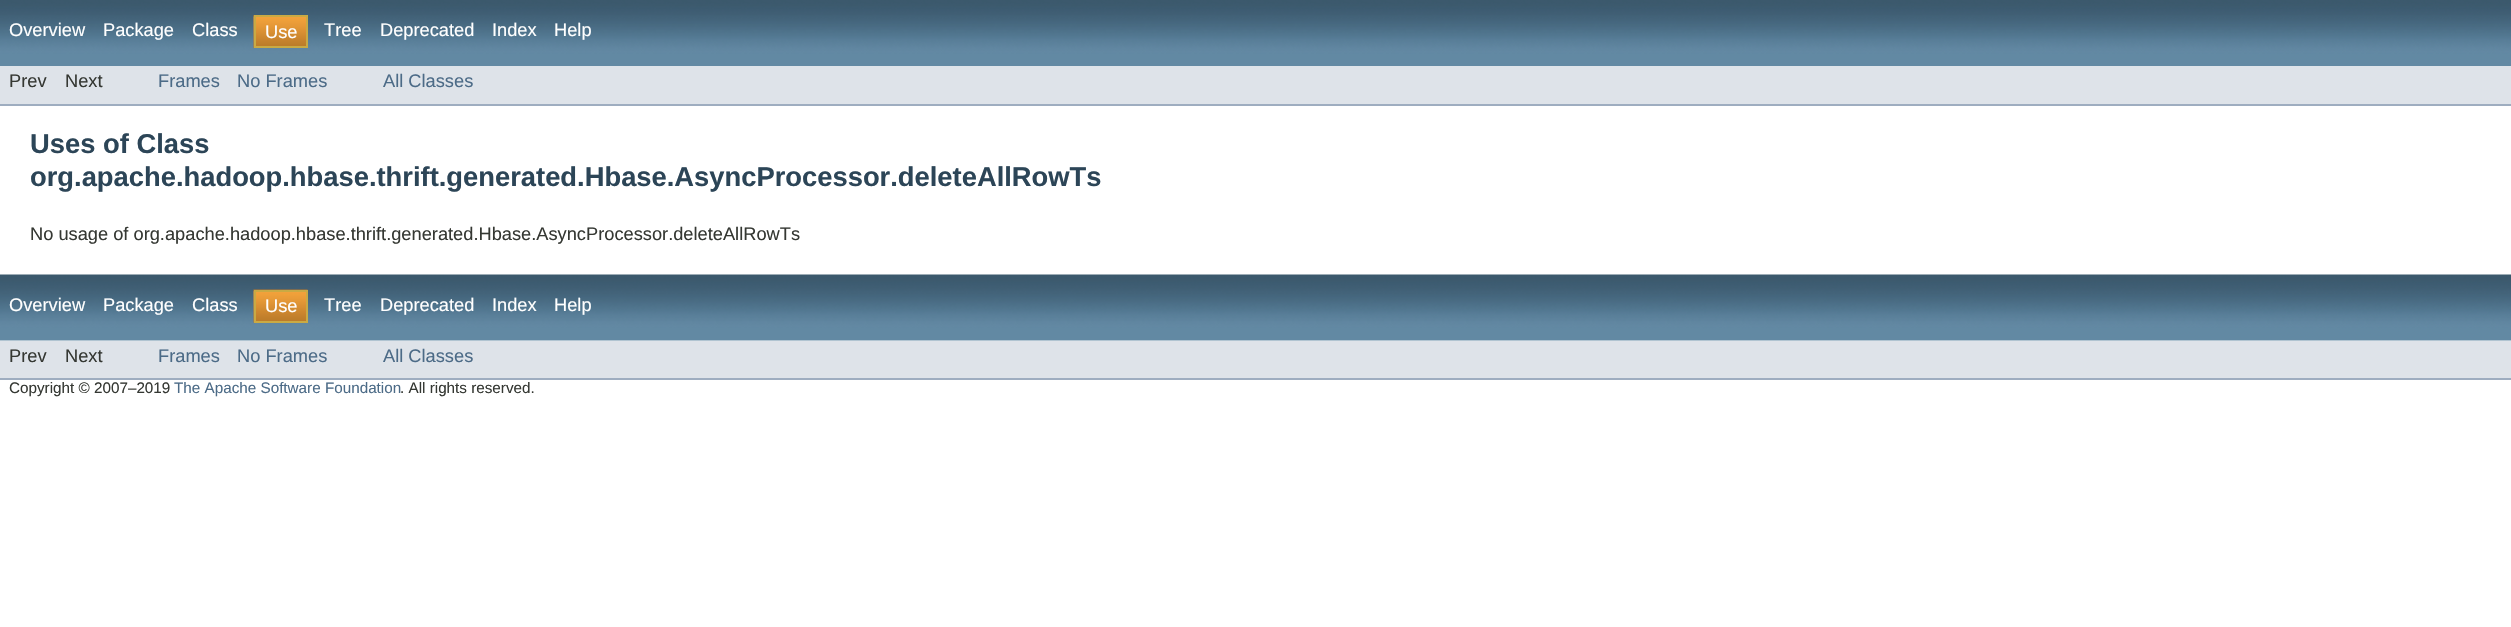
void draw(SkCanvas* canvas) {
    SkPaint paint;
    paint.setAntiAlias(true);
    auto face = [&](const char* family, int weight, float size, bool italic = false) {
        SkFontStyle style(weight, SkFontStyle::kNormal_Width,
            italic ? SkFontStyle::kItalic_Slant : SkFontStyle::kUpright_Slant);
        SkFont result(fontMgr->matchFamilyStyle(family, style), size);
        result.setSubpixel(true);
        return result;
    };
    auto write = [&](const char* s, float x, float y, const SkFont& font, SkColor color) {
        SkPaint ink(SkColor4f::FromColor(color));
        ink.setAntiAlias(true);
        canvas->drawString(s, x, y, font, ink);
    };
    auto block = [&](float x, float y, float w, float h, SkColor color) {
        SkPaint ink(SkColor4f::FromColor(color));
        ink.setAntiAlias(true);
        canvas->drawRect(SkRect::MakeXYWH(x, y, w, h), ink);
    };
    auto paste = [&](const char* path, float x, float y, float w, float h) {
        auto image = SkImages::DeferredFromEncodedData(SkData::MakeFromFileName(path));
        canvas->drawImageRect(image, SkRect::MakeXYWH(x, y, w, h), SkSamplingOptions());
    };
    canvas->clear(SK_ColorWHITE);
    paste("pic1.png", 0, 0, 2511, 66);
    auto kFont1 = face("Liberation Sans", 400, 18.25f);
    write("Overview", 9, 36, kFont1, SK_ColorWHITE);
    write("Package", 103, 36, kFont1, SK_ColorWHITE);
    write("Class", 192, 36, kFont1, SK_ColorWHITE);
    paste("pic2.png", 253, 15, 53, 33);
    paint.setStyle(SkPaint::kStroke_Style);
    paint.setStrokeWidth(2);
    paint.setColor(SkColorSetRGB(201, 170, 68));
    canvas->drawRect(SkRect::MakeXYWH(255, 16, 52, 31), paint);
    write("Use", 265, 38, kFont1, SK_ColorWHITE);
    write("Tree", 324, 36, kFont1, SK_ColorWHITE);
    write("Deprecated", 380, 36, kFont1, SK_ColorWHITE);
    write("Index", 492, 36, kFont1, SK_ColorWHITE);
    write("Help", 554, 36, kFont1, SK_ColorWHITE);
    block(0, 66, 2511, 38, SkColorSetRGB(222, 227, 233));
    block(0, 104, 2511, 2, SkColorSetRGB(158, 173, 192));
    write("Prev", 9, 87, kFont1, SkColorSetRGB(53, 56, 51));
    write("Next", 65, 87, kFont1, SkColorSetRGB(53, 56, 51));
    write("Frames", 158, 87, kFont1, SkColorSetRGB(76, 107, 135));
    write("No Frames", 237, 87, kFont1, SkColorSetRGB(76, 107, 135));
    write("All Classes", 383, 87, kFont1, SkColorSetRGB(76, 107, 135));
    auto kFont2 = face("Liberation Sans", 700, 27.35f);
    write("Uses of Class", 30, 153, kFont2, SkColorSetRGB(44, 69, 87));
    write("org.apache.hadoop.hbase.thrift.generated.Hbase.AsyncProcessor.deleteAllRowTs", 30, 186, kFont2, SkColorSetRGB(44, 69, 87));
    write("No usage of org.apache.hadoop.hbase.thrift.generated.Hbase.AsyncProcessor.deleteAllRowTs", 30, 240, kFont1, SkColorSetRGB(53, 56, 51));
    paste("pic3.png", 0, 274, 2511, 67);
    write("Overview", 9, 311, kFont1, SK_ColorWHITE);
    write("Package", 103, 311, kFont1, SK_ColorWHITE);
    write("Class", 192, 311, kFont1, SK_ColorWHITE);
    paste("pic4.png", 253, 289, 55, 34);
    canvas->drawRect(SkRect::MakeXYWH(255, 291, 52, 31), paint);
    write("Use", 265, 312, kFont1, SK_ColorWHITE);
    write("Tree", 324, 311, kFont1, SK_ColorWHITE);
    write("Deprecated", 380, 311, kFont1, SK_ColorWHITE);
    write("Index", 492, 311, kFont1, SK_ColorWHITE);
    write("Help", 554, 311, kFont1, SK_ColorWHITE);
    block(0, 341, 2511, 37, SkColorSetRGB(222, 227, 233));
    block(0, 378, 2511, 2, SkColorSetRGB(158, 173, 192));
    write("Prev", 9, 362, kFont1, SkColorSetRGB(53, 56, 51));
    write("Next", 65, 362, kFont1, SkColorSetRGB(53, 56, 51));
    write("Frames", 158, 362, kFont1, SkColorSetRGB(76, 107, 135));
    write("No Frames", 237, 362, kFont1, SkColorSetRGB(76, 107, 135));
    write("All Classes", 383, 362, kFont1, SkColorSetRGB(76, 107, 135));
    auto kFont3 = face("Liberation Sans", 400, 15.25f);
    write("Copyright © 2007–2019", 9, 393, kFont3, SkColorSetRGB(53, 56, 51));
    write("The Apache Software Foundation", 174, 393, kFont3, SkColorSetRGB(76, 107, 135));
    write(". All rights reserved.", 400, 393, kFont3, SkColorSetRGB(53, 56, 51));
}
